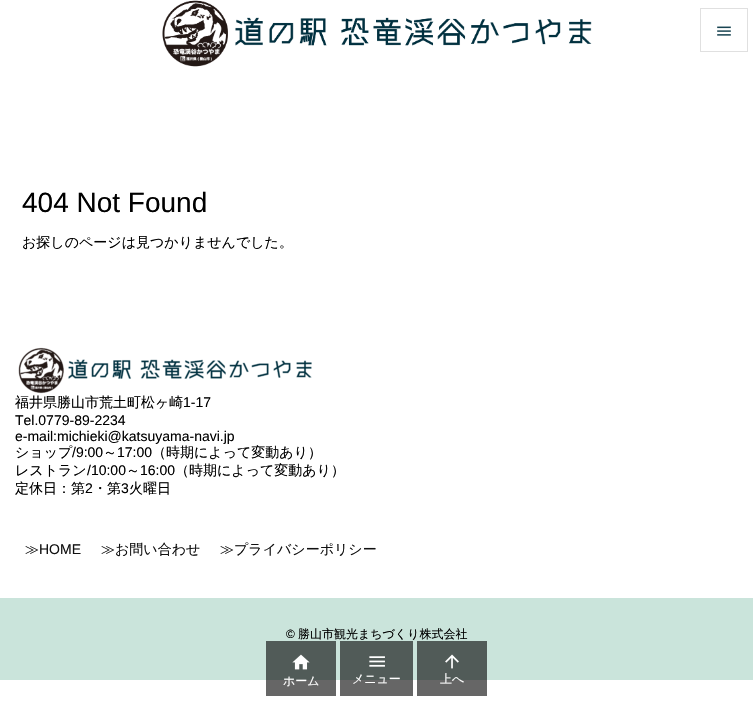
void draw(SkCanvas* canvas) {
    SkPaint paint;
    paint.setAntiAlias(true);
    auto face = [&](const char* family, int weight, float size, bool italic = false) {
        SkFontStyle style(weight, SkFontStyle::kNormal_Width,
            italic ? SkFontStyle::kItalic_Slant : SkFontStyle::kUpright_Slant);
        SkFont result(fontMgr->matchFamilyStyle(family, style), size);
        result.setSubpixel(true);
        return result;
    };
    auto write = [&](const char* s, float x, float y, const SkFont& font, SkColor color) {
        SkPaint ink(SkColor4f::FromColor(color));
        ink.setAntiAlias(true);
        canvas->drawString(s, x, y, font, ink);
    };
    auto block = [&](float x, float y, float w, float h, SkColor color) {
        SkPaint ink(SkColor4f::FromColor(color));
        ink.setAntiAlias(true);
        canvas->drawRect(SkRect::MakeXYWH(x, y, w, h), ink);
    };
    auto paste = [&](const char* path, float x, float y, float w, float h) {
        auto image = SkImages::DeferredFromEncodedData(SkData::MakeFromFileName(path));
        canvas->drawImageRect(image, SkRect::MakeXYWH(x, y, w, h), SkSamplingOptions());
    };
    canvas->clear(SK_ColorWHITE);
    block(417, 680, 70, 16, SkColorSetRGB(102, 102, 102));
    block(340, 680, 73, 16, SkColorSetRGB(102, 102, 102));
    block(266, 680, 70, 16, SkColorSetRGB(102, 102, 102));
    paste("pic1.png", 162, 0, 430, 67);
    paint.setStyle(SkPaint::kStroke_Style);
    paint.setStrokeWidth(1);
    paint.setColor(SkColorSetRGB(224, 224, 224));
    canvas->drawRect(SkRect::MakeXYWH(700.5f, 8.5f, 47, 43), paint);
    paste("pic2.png", 717, 26, 14, 10);
    auto kFont1 = face("Liberation Sans", 400, 28);
    write("404 Not Found", 22, 212, kFont1, SK_ColorBLACK);
    auto kFont2 = face("WenQuanYi Zen Hei", 500, 14);
    write("お探しのページは見つかりませんでした。", 22, 247, kFont2, SK_ColorBLACK);
    paste("pic3.png", 18, 347, 294, 47);
    write("福井県勝山市荒土町松ヶ崎", 15, 407, kFont2, SK_ColorBLACK);
    auto kFont3 = face("Liberation Sans", 400, 14);
    write("1-17", 183, 407, kFont3, SK_ColorBLACK);
    write("Tel.0779-89-2234", 15, 425, kFont3, SK_ColorBLACK);
    write("e-mail:michieki@katsuyama-navi.jp", 15, 441, kFont3, SK_ColorBLACK);
    write("ショップ", 15, 457, kFont2, SK_ColorBLACK);
    write("/9:00", 72, 457, kFont3, SK_ColorBLACK);
    write("～", 103, 457, kFont2, SK_ColorBLACK);
    write("17:00", 117, 457, kFont3, SK_ColorBLACK);
    write("（時期によって変動あり）", 152, 457, kFont2, SK_ColorBLACK);
    write("レストラン", 15, 475, kFont2, SK_ColorBLACK);
    write("/10:00", 87, 475, kFont3, SK_ColorBLACK);
    write("～", 126, 475, kFont2, SK_ColorBLACK);
    write("16:00", 140, 475, kFont3, SK_ColorBLACK);
    write("（時期によって変動あり）", 175, 475, kFont2, SK_ColorBLACK);
    write("定休日：第", 15, 493, kFont2, SK_ColorBLACK);
    write("2", 85, 493, kFont3, SK_ColorBLACK);
    write("・第", 93, 493, kFont2, SK_ColorBLACK);
    write("3", 121, 493, kFont3, SK_ColorBLACK);
    write("火曜日", 129, 493, kFont2, SK_ColorBLACK);
    write("≫", 25, 554, kFont2, SkColorSetRGB(17, 17, 17));
    write("HOME", 39, 554, kFont3, SkColorSetRGB(17, 17, 17));
    write("≫お問い合わせ", 101, 554, kFont2, SkColorSetRGB(17, 17, 17));
    write("≫プライバシーポリシー", 220, 554, kFont2, SkColorSetRGB(17, 17, 17));
    block(0, 598, 753, 82, SkColorSetRGB(202, 228, 219));
    block(417, 641, 70, 39, SkColorSetRGB(81, 91, 88));
    block(340, 641, 73, 39, SkColorSetRGB(81, 91, 88));
    block(266, 641, 70, 39, SkColorSetRGB(81, 91, 88));
    auto kFont4 = face("Liberation Sans", 400, 12);
    write("©", 286, 638, kFont4, SK_ColorBLACK);
    auto kFont5 = face("WenQuanYi Zen Hei", 500, 12);
    write("勝山市観光まちづくり株式会社", 298, 638, kFont5, SK_ColorBLACK);
    paste("pic4.png", 292, 654, 18, 16);
    write("ホーム", 283, 685, kFont5, SK_ColorWHITE);
    paste("pic5.png", 369, 656, 16, 11);
    write("メニュー", 352, 683, kFont5, SK_ColorWHITE);
    paste("pic6.png", 445, 654, 14, 15);
    write("上へ", 440, 683, kFont5, SK_ColorWHITE);
}
